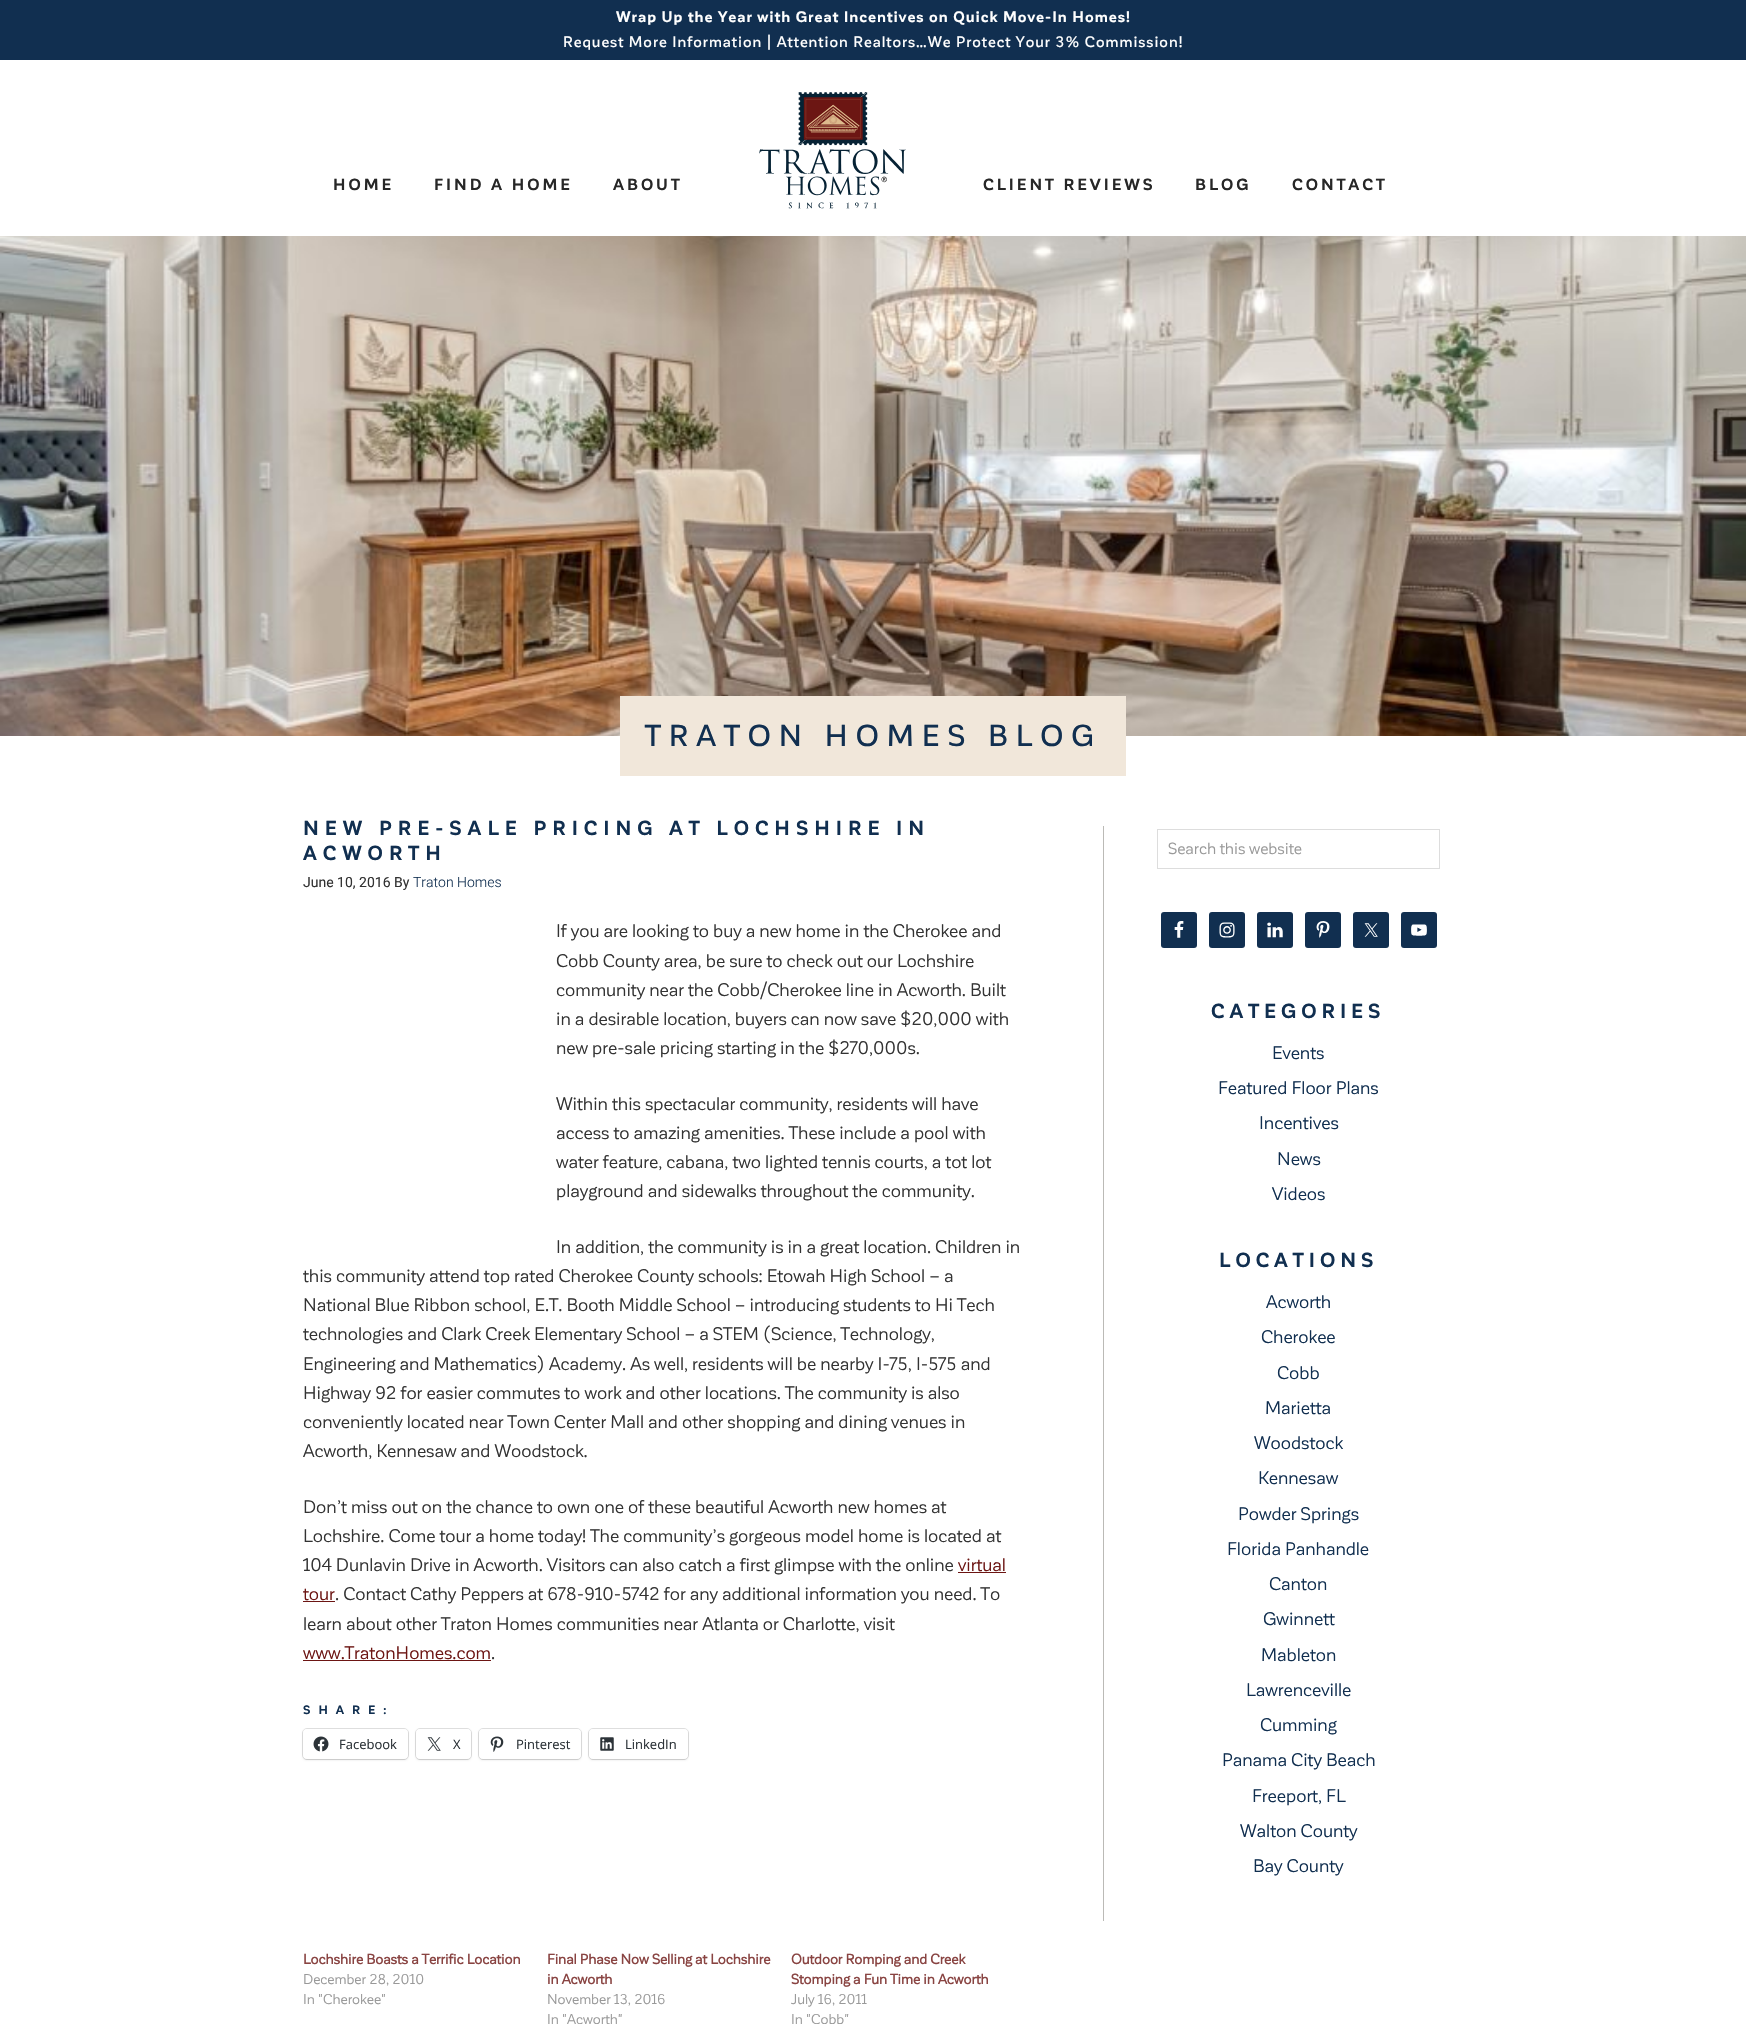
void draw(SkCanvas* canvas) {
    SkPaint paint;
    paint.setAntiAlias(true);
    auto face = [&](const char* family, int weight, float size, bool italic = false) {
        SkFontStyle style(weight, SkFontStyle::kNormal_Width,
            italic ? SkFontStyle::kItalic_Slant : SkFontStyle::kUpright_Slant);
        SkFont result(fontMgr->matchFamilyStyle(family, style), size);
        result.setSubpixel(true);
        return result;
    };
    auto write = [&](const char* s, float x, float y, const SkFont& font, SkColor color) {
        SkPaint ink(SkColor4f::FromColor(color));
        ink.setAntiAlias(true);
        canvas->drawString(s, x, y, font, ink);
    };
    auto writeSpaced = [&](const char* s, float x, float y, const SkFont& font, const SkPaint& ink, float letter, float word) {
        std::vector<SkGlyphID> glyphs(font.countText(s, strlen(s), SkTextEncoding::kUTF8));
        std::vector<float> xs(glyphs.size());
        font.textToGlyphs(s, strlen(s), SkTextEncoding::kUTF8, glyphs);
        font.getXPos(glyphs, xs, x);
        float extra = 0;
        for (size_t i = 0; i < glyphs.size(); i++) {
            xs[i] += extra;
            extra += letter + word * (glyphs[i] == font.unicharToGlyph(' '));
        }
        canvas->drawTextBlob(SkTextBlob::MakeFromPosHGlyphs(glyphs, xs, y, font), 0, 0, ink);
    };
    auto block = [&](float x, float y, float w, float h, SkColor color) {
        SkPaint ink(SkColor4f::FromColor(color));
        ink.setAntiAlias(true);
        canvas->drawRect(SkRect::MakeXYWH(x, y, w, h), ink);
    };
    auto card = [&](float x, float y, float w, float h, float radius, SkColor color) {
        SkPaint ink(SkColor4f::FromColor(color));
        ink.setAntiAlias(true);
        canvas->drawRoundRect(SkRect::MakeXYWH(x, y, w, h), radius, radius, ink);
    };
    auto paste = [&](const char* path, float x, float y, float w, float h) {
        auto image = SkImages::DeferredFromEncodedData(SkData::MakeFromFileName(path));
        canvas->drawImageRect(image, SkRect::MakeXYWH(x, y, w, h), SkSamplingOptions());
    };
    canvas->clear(SK_ColorWHITE);
    block(0, 0, 1746, 60, SkColorSetRGB(17, 47, 80));
    auto kFont1 = face("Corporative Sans", 700, 15);
    paint.setColor(SK_ColorWHITE);
    writeSpaced("Wrap Up the Year with Great Incentives on Quick Move-In Homes!", 616, 22, kFont1, paint, 1, 0);
    auto kFont2 = face("Corporative Sans", 500, 15);
    writeSpaced("Request More Information | Attention Realtors…We Protect Your 3% Commission!", 563, 47, kFont2, paint, 1, 0);
    auto kFont3 = face("Corporative Sans", 700, 16);
    paint.setColor(SkColorSetRGB(39, 39, 39));
    writeSpaced("HOME", 333, 190, kFont3, paint, 3, 0);
    writeSpaced("FIND A HOME", 434, 190, kFont3, paint, 3, 0);
    writeSpaced("ABOUT", 613, 190, kFont3, paint, 3, 0);
    paste("pic1.png", 759, 92, 147, 117);
    writeSpaced("CLIENT REVIEWS", 983, 190, kFont3, paint, 3, 0);
    writeSpaced("BLOG", 1195, 190, kFont3, paint, 3, 0);
    writeSpaced("CONTACT", 1292, 190, kFont3, paint, 3, 0);
    paste("pic2.png", 0, 236, 1746, 500);
    block(620, 696, 506, 80, SkColorSetRGB(241, 231, 218));
    auto kFont4 = face("Corporative Sans", 500, 30);
    paint.setColor(SkColorSetRGB(17, 47, 80));
    writeSpaced("TRATON HOMES BLOG", 645, 746, kFont4, paint, 8, 0);
    auto kFont5 = face("Corporative Sans", 700, 20);
    writeSpaced("NEW PRE-SALE PRICING AT LOCHSHIRE IN", 303, 835, kFont5, paint, 6, 0);
    writeSpaced("ACWORTH", 303, 860, kFont5, paint, 6, 0);
    auto kFont6 = face("Roboto", 400, 14);
    write("June 10, 2016 By", 303, 887, kFont6, SkColorSetRGB(51, 51, 51));
    auto kFont7 = face("Roboto", 300, 14);
    write("Traton Homes", 413, 887, kFont7, SkColorSetRGB(17, 47, 80));
    auto kFont8 = face("Corporative Sans", 400, 18);
    write("If you are looking to buy a new home in the Cherokee and", 556, 937, kFont8, SkColorSetRGB(51, 51, 51));
    write("Cobb County area, be sure to check out our Lochshire", 556, 967, kFont8, SkColorSetRGB(51, 51, 51));
    write("community near the Cobb/Cherokee line in Acworth. Built", 556, 996, kFont8, SkColorSetRGB(51, 51, 51));
    write("in a desirable location, buyers can now save $20,000 with", 556, 1025, kFont8, SkColorSetRGB(51, 51, 51));
    write("new pre-sale pricing starting in the $270,000s.", 556, 1054, kFont8, SkColorSetRGB(51, 51, 51));
    write("Within this spectacular community, residents will have", 556, 1110, kFont8, SkColorSetRGB(51, 51, 51));
    write("access to amazing amenities. These include a pool with", 556, 1139, kFont8, SkColorSetRGB(51, 51, 51));
    write("water feature, cabana, two lighted tennis courts, a tot lot", 556, 1168, kFont8, SkColorSetRGB(51, 51, 51));
    write("playground and sidewalks throughout the community.", 556, 1197, kFont8, SkColorSetRGB(51, 51, 51));
    write("In addition, the community is in a great location. Children in", 556, 1253, kFont8, SkColorSetRGB(51, 51, 51));
    write("this community attend top rated Cherokee County schools: Etowah High School – a", 303, 1282, kFont8, SkColorSetRGB(51, 51, 51));
    write("National Blue Ribbon school, E.T. Booth Middle School – introducing students to Hi Tech", 303, 1311, kFont8, SkColorSetRGB(51, 51, 51));
    write("technologies and Clark Creek Elementary School – a STEM (Science, Technology,", 303, 1340, kFont8, SkColorSetRGB(51, 51, 51));
    write("Engineering and Mathematics) Academy. As well, residents will be nearby I-75, I-575 and", 303, 1370, kFont8, SkColorSetRGB(51, 51, 51));
    write("Highway 92 for easier commutes to work and other locations. The community is also", 303, 1399, kFont8, SkColorSetRGB(51, 51, 51));
    write("conveniently located near Town Center Mall and other shopping and dining venues in", 303, 1428, kFont8, SkColorSetRGB(51, 51, 51));
    write("Acworth, Kennesaw and Woodstock.", 303, 1457, kFont8, SkColorSetRGB(51, 51, 51));
    write("Don’t miss out on the chance to own one of these beautiful Acworth new homes at", 303, 1513, kFont8, SkColorSetRGB(51, 51, 51));
    write("Lochshire. Come tour a home today! The community’s gorgeous model home is located at", 303, 1542, kFont8, SkColorSetRGB(51, 51, 51));
    write("104 Dunlavin Drive in Acworth. Visitors can also catch a first glimpse with the online", 303, 1571, kFont8, SkColorSetRGB(51, 51, 51));
    write("virtual", 958, 1571, kFont8, SkColorSetRGB(108, 21, 19));
    block(958, 1572, 48, 1, SkColorSetRGB(108, 21, 19));
    write("tour", 303, 1600, kFont8, SkColorSetRGB(108, 21, 19));
    block(303, 1601, 32, 1, SkColorSetRGB(108, 21, 19));
    write(". Contact Cathy Peppers at 678-910-5742 for any additional information you need. To", 335, 1600, kFont8, SkColorSetRGB(51, 51, 51));
    write("learn about other Traton Homes communities near Atlanta or Charlotte, visit", 303, 1630, kFont8, SkColorSetRGB(51, 51, 51));
    write("www.TratonHomes.com", 303, 1659, kFont8, SkColorSetRGB(108, 21, 19));
    block(303, 1660, 188, 1, SkColorSetRGB(108, 21, 19));
    write(".", 491, 1659, kFont8, SkColorSetRGB(51, 51, 51));
    auto kFont9 = face("Corporative Sans", 700, 12);
    writeSpaced("SHARE:", 303, 1714, kFont9, paint, 8, 0);
    paint.setStyle(SkPaint::kStroke_Style);
    paint.setStrokeWidth(1);
    paint.setColor(SkColorSetRGB(224, 224, 224));
    canvas->drawRoundRect(SkRect::MakeXYWH(302.5f, 1728.5f, 106, 31), 4.5f, 4.5f, paint);
    paint.setStyle(SkPaint::kFill_Style);
    paint.setColor(SkColorSetARGB(31, 0, 0, 0));
    paint.setMaskFilter(SkMaskFilter::MakeBlur(kNormal_SkBlurStyle, 1));
    canvas->drawRoundRect(SkRect::MakeXYWH(303, 1730, 105, 30), 4, 4, paint);
    paint.setMaskFilter(nullptr);
    card(303, 1729, 105, 30, 4, SK_ColorWHITE);
    paste("pic3.png", 313, 1736, 16, 16);
    auto kFont10 = face("Open Sans", 400, 13);
    write("Facebook", 339, 1749, kFont10, SkColorSetRGB(44, 51, 56));
    paint.setStyle(SkPaint::kStroke_Style);
    paint.setColor(SkColorSetRGB(224, 224, 224));
    canvas->drawRoundRect(SkRect::MakeXYWH(415.5f, 1728.5f, 56, 31), 4.5f, 4.5f, paint);
    paint.setStyle(SkPaint::kFill_Style);
    paint.setColor(SkColorSetARGB(31, 0, 0, 0));
    paint.setMaskFilter(SkMaskFilter::MakeBlur(kNormal_SkBlurStyle, 1));
    canvas->drawRoundRect(SkRect::MakeXYWH(416, 1730, 55, 30), 4, 4, paint);
    paint.setMaskFilter(nullptr);
    card(416, 1729, 55, 30, 4, SK_ColorWHITE);
    paste("pic4.png", 427, 1737, 14, 14);
    write("X", 453, 1749, kFont10, SkColorSetRGB(44, 51, 56));
    paint.setStyle(SkPaint::kStroke_Style);
    paint.setColor(SkColorSetRGB(224, 224, 224));
    canvas->drawRoundRect(SkRect::MakeXYWH(478.5f, 1728.5f, 103, 31), 4.5f, 4.5f, paint);
    paint.setStyle(SkPaint::kFill_Style);
    paint.setColor(SkColorSetARGB(31, 0, 0, 0));
    paint.setMaskFilter(SkMaskFilter::MakeBlur(kNormal_SkBlurStyle, 1));
    canvas->drawRoundRect(SkRect::MakeXYWH(479, 1730, 102, 30), 4, 4, paint);
    paint.setMaskFilter(nullptr);
    card(479, 1729, 102, 30, 4, SK_ColorWHITE);
    paste("pic5.png", 490, 1736, 14, 16);
    write("Pinterest", 516, 1749, kFont10, SkColorSetRGB(44, 51, 56));
    paint.setStyle(SkPaint::kStroke_Style);
    paint.setColor(SkColorSetRGB(224, 224, 224));
    canvas->drawRoundRect(SkRect::MakeXYWH(588.5f, 1728.5f, 100, 31), 4.5f, 4.5f, paint);
    paint.setStyle(SkPaint::kFill_Style);
    paint.setColor(SkColorSetARGB(31, 0, 0, 0));
    paint.setMaskFilter(SkMaskFilter::MakeBlur(kNormal_SkBlurStyle, 1));
    canvas->drawRoundRect(SkRect::MakeXYWH(589, 1730, 99, 30), 4, 4, paint);
    paint.setMaskFilter(nullptr);
    card(589, 1729, 99, 30, 4, SK_ColorWHITE);
    paste("pic6.png", 600, 1737, 14, 14);
    write("LinkedIn", 625, 1749, kFont10, SkColorSetRGB(44, 51, 56));
    auto kFont11 = face("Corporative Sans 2", 700, 14);
    write("Lochshire Boasts a Terrific Location", 303, 1964, kFont11, SkColorSetRGB(137, 68, 66));
    auto kFont12 = face("Corporative Sans", 400, 14);
    write("December 28, 2010", 303, 1984, kFont12, SkColorSetRGB(153, 153, 153));
    write("In \"Cherokee\"", 303, 2004, kFont12, SkColorSetRGB(153, 153, 153));
    write("Final Phase Now Selling at Lochshire", 547, 1964, kFont11, SkColorSetRGB(137, 68, 66));
    write("in Acworth", 547, 1984, kFont11, SkColorSetRGB(137, 68, 66));
    write("November 13, 2016", 547, 2004, kFont12, SkColorSetRGB(153, 153, 153));
    write("In \"Acworth\"", 547, 2024, kFont12, SkColorSetRGB(153, 153, 153));
    write("Outdoor Romping and Creek", 791, 1964, kFont11, SkColorSetRGB(137, 68, 66));
    write("Stomping a Fun Time in Acworth", 791, 1984, kFont11, SkColorSetRGB(137, 68, 66));
    write("July 16, 2011", 791, 2004, kFont12, SkColorSetRGB(153, 153, 153));
    write("In \"Cobb\"", 791, 2024, kFont12, SkColorSetRGB(153, 153, 153));
    block(1103, 826, 1, 1095, SkColorSetRGB(187, 186, 182));
    paint.setStyle(SkPaint::kStroke_Style);
    paint.setColor(SkColorSetRGB(221, 221, 221));
    canvas->drawRect(SkRect::MakeXYWH(1157.5f, 829.5f, 282, 39), paint);
    auto kFont13 = face("Corporative Sans", 400, 16);
    write("Search this website", 1168, 854, kFont13, SkColorSetRGB(153, 153, 153));
    card(1161, 912, 36, 36, 3, SkColorSetRGB(17, 47, 80));
    paste("pic7.png", 1174, 921, 10, 17);
    card(1209, 912, 36, 36, 3, SkColorSetRGB(17, 47, 80));
    paste("pic8.png", 1219, 922, 16, 16);
    card(1257, 912, 36, 36, 3, SkColorSetRGB(17, 47, 80));
    paste("pic9.png", 1267, 922, 16, 16);
    card(1305, 912, 36, 36, 3, SkColorSetRGB(17, 47, 80));
    paste("pic10.png", 1316, 921, 14, 17);
    card(1353, 912, 36, 36, 3, SkColorSetRGB(17, 47, 80));
    paste("pic11.png", 1364, 923, 14, 14);
    card(1401, 912, 36, 36, 3, SkColorSetRGB(17, 47, 80));
    paste("pic12.png", 1411, 924, 16, 12);
    paint.setStyle(SkPaint::kFill_Style);
    paint.setColor(SkColorSetRGB(17, 47, 80));
    writeSpaced("CATEGORIES", 1211, 1018, kFont5, paint, 5, 0);
    write("Events", 1272, 1059, kFont8, SkColorSetRGB(17, 47, 80));
    write("Featured Floor Plans", 1218, 1094, kFont8, SkColorSetRGB(17, 47, 80));
    write("Incentives", 1259, 1129, kFont8, SkColorSetRGB(17, 47, 80));
    write("News", 1277, 1165, kFont8, SkColorSetRGB(17, 47, 80));
    write("Videos", 1272, 1200, kFont8, SkColorSetRGB(17, 47, 80));
    writeSpaced("LOCATIONS", 1219, 1267, kFont5, paint, 5, 0);
    write("Acworth", 1266, 1308, kFont8, SkColorSetRGB(17, 47, 80));
    write("Cherokee", 1261, 1343, kFont8, SkColorSetRGB(17, 47, 80));
    write("Cobb", 1277, 1379, kFont8, SkColorSetRGB(17, 47, 80));
    write("Marietta", 1265, 1414, kFont8, SkColorSetRGB(17, 47, 80));
    write("Woodstock", 1254, 1449, kFont8, SkColorSetRGB(17, 47, 80));
    write("Kennesaw", 1258, 1484, kFont8, SkColorSetRGB(17, 47, 80));
    write("Powder Springs", 1238, 1520, kFont8, SkColorSetRGB(17, 47, 80));
    write("Florida Panhandle", 1227, 1555, kFont8, SkColorSetRGB(17, 47, 80));
    write("Canton", 1269, 1590, kFont8, SkColorSetRGB(17, 47, 80));
    write("Gwinnett", 1263, 1625, kFont8, SkColorSetRGB(17, 47, 80));
    write("Mableton", 1261, 1661, kFont8, SkColorSetRGB(17, 47, 80));
    write("Lawrenceville", 1246, 1696, kFont8, SkColorSetRGB(17, 47, 80));
    write("Cumming", 1260, 1731, kFont8, SkColorSetRGB(17, 47, 80));
    write("Panama City Beach", 1222, 1766, kFont8, SkColorSetRGB(17, 47, 80));
    write("Freeport, FL", 1252, 1802, kFont8, SkColorSetRGB(17, 47, 80));
    write("Walton County", 1240, 1837, kFont8, SkColorSetRGB(17, 47, 80));
    write("Bay County", 1253, 1872, kFont8, SkColorSetRGB(17, 47, 80));
}
